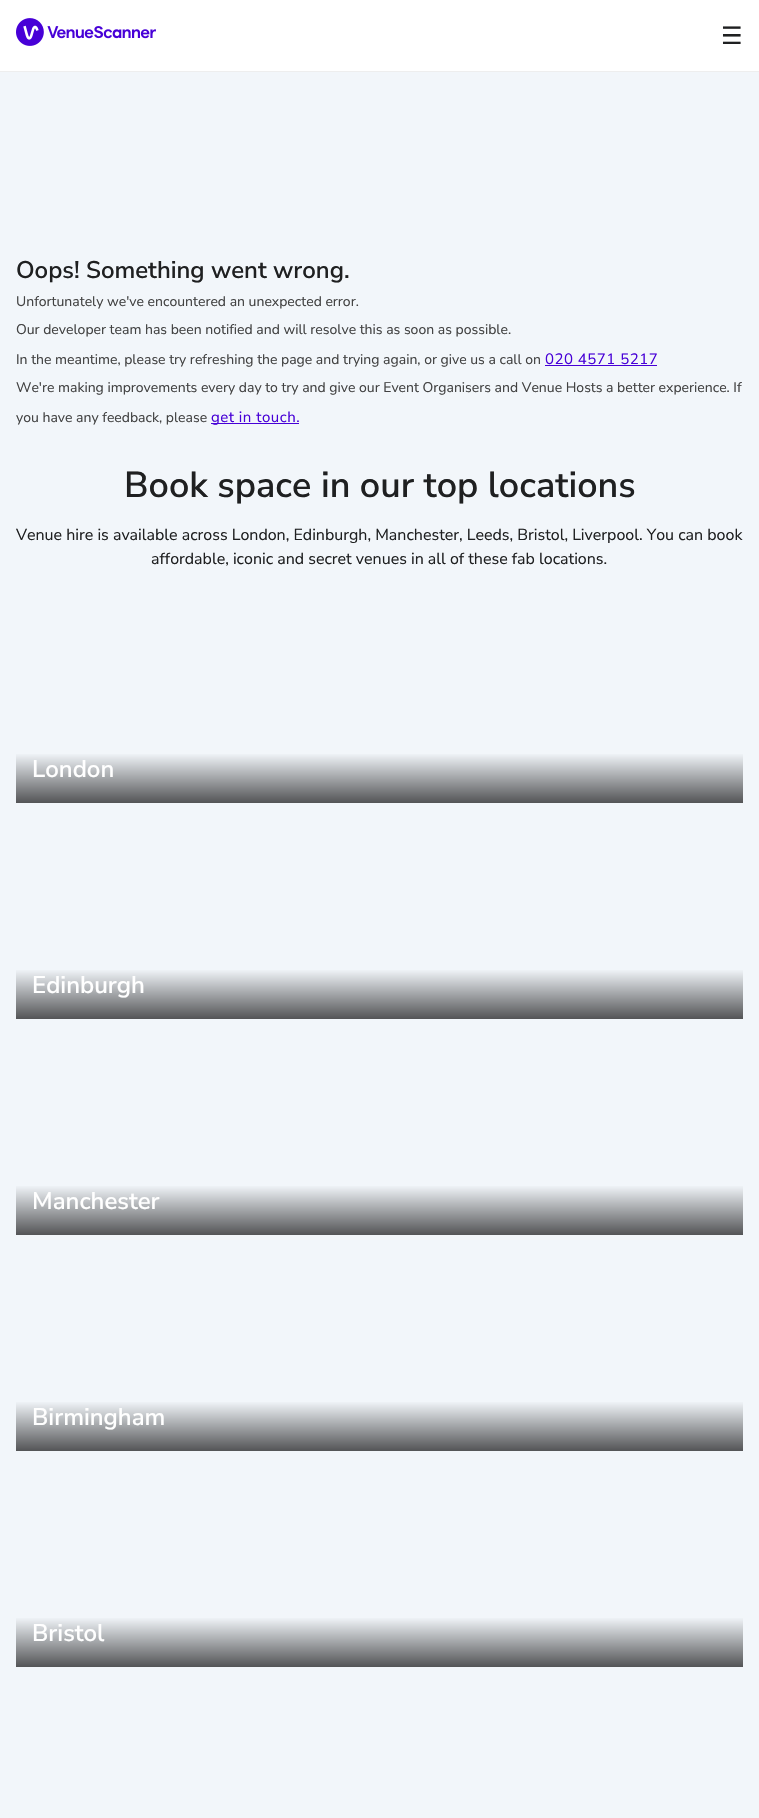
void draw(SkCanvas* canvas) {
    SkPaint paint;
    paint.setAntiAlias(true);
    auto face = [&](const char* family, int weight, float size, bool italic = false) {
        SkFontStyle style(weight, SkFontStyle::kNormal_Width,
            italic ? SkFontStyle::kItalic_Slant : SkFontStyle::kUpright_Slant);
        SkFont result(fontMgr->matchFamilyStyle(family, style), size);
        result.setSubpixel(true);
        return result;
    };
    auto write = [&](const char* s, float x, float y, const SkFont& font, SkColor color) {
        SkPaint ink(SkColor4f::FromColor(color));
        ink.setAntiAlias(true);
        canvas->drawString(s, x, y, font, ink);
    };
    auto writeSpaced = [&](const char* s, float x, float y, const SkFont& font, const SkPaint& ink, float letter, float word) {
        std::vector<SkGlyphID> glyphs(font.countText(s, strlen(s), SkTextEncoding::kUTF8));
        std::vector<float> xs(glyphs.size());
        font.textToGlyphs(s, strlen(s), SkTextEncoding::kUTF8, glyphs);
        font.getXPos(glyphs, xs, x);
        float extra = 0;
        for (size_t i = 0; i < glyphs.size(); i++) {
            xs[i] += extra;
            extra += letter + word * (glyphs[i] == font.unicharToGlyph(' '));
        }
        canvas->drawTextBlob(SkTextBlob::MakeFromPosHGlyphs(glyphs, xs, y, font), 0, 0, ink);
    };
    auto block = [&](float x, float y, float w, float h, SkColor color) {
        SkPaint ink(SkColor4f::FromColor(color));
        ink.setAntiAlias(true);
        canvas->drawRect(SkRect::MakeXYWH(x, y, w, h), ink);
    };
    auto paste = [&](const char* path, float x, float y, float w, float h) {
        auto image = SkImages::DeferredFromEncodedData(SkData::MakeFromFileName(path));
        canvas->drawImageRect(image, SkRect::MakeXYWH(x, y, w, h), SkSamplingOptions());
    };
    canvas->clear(SK_ColorWHITE);
    block(0, 71, 759, 1, SkColorSetRGB(238, 238, 238));
    paste("pic1.png", 16, 18, 140, 28);
    auto kFont1 = face("DejaVu Sans", 400, 24);
    write("☰", 721, 44, kFont1, SkColorSetRGB(31, 32, 33));
    block(0, 72, 759, 1746, SkColorSetRGB(242, 246, 250));
    auto kFont2 = face("Nunito Sans", 600, 24);
    write("Oops! Something went wrong.", 16, 278, kFont2, SkColorSetRGB(31, 32, 33));
    auto kFont3 = face("Nunito Sans", 400, 14);
    write("Unfortunately we've encountered an unexpected error.", 16, 306, kFont3, SkColorSetRGB(66, 66, 66));
    write("Our developer team has been notified and will resolve this as soon as possible.", 16, 334, kFont3, SkColorSetRGB(66, 66, 66));
    write("In the meantime, please try refreshing the page and trying again, or give us a call on", 16, 364, kFont3, SkColorSetRGB(66, 66, 66));
    auto kFont4 = face("Nunito Sans", 400, 15);
    paint.setColor(SkColorSetRGB(71, 0, 215));
    writeSpaced("020 4571 5217", 545, 364, kFont4, paint, 0.5f, 0);
    block(545, 365, 112, 1, SkColorSetRGB(71, 0, 215));
    write("We're making improvements every day to try and give our Event Organisers and Venue Hosts a better experience. If", 16, 392, kFont3, SkColorSetRGB(66, 66, 66));
    write("you have any feedback, please", 16, 422, kFont3, SkColorSetRGB(66, 66, 66));
    block(211, 423, 88, 1, SkColorSetRGB(71, 0, 215));
    writeSpaced("get in touch.", 211, 422, kFont4, paint, 0.5f, 0);
    auto kFont5 = face("Nunito Sans", 600, 36);
    write("Book space in our top locations", 124, 497, kFont5, SkColorSetRGB(31, 32, 33));
    auto kFont6 = face("Nunito Sans", 400, 16);
    write("Venue hire is available across London, Edinburgh, Manchester, Leeds, Bristol, Liverpool. You can book", 16, 540, kFont6, SkColorSetRGB(31, 32, 33));
    write("affordable, iconic and secret venues in all of these fab locations.", 151, 564, kFont6, SkColorSetRGB(31, 32, 33));
    {
        const SkColor colors[] = {SkColorSetRGB(242, 246, 250), SkColorSetRGB(85, 86, 88), SkColorSetRGB(85, 86, 88)};
        const float stops[] = {0, 0.99f, 1};
        const SkPoint ends[] = {{380, 753}, {380, 803}};
        paint.setShader(SkGradientShader::MakeLinear(ends, colors, stops, 3, SkTileMode::kClamp));
        paint.setAlpha(255);
    }
    canvas->drawRect(SkRect::MakeXYWH(16, 754, 727, 49), paint);
    write("London", 32, 777, kFont2, SK_ColorWHITE);
    {
        const SkColor colors[] = {SkColorSetRGB(242, 246, 250), SkColorSetRGB(85, 86, 88), SkColorSetRGB(85, 86, 88)};
        const float stops[] = {0, 0.99f, 1};
        const SkPoint ends[] = {{380, 969}, {380, 1019}};
        paint.setShader(SkGradientShader::MakeLinear(ends, colors, stops, 3, SkTileMode::kClamp));
        paint.setAlpha(255);
    }
    canvas->drawRect(SkRect::MakeXYWH(16, 970, 727, 49), paint);
    write("Edinburgh", 32, 993, kFont2, SK_ColorWHITE);
    {
        const SkColor colors[] = {SkColorSetRGB(242, 246, 250), SkColorSetRGB(85, 86, 88), SkColorSetRGB(85, 86, 88)};
        const float stops[] = {0, 0.99f, 1};
        const SkPoint ends[] = {{380, 1185}, {380, 1235}};
        paint.setShader(SkGradientShader::MakeLinear(ends, colors, stops, 3, SkTileMode::kClamp));
        paint.setAlpha(255);
    }
    canvas->drawRect(SkRect::MakeXYWH(16, 1186, 727, 49), paint);
    write("Manchester", 32, 1209, kFont2, SK_ColorWHITE);
    {
        const SkColor colors[] = {SkColorSetRGB(242, 246, 250), SkColorSetRGB(85, 86, 88), SkColorSetRGB(85, 86, 88)};
        const float stops[] = {0, 0.99f, 1};
        const SkPoint ends[] = {{380, 1401}, {380, 1451}};
        paint.setShader(SkGradientShader::MakeLinear(ends, colors, stops, 3, SkTileMode::kClamp));
        paint.setAlpha(255);
    }
    canvas->drawRect(SkRect::MakeXYWH(16, 1402, 727, 49), paint);
    write("Birmingham", 32, 1425, kFont2, SK_ColorWHITE);
    {
        const SkColor colors[] = {SkColorSetRGB(242, 246, 250), SkColorSetRGB(85, 86, 88), SkColorSetRGB(85, 86, 88)};
        const float stops[] = {0, 0.99f, 1};
        const SkPoint ends[] = {{380, 1617}, {380, 1667}};
        paint.setShader(SkGradientShader::MakeLinear(ends, colors, stops, 3, SkTileMode::kClamp));
        paint.setAlpha(255);
    }
    canvas->drawRect(SkRect::MakeXYWH(16, 1618, 727, 49), paint);
    write("Bristol", 32, 1641, kFont2, SK_ColorWHITE);
}
